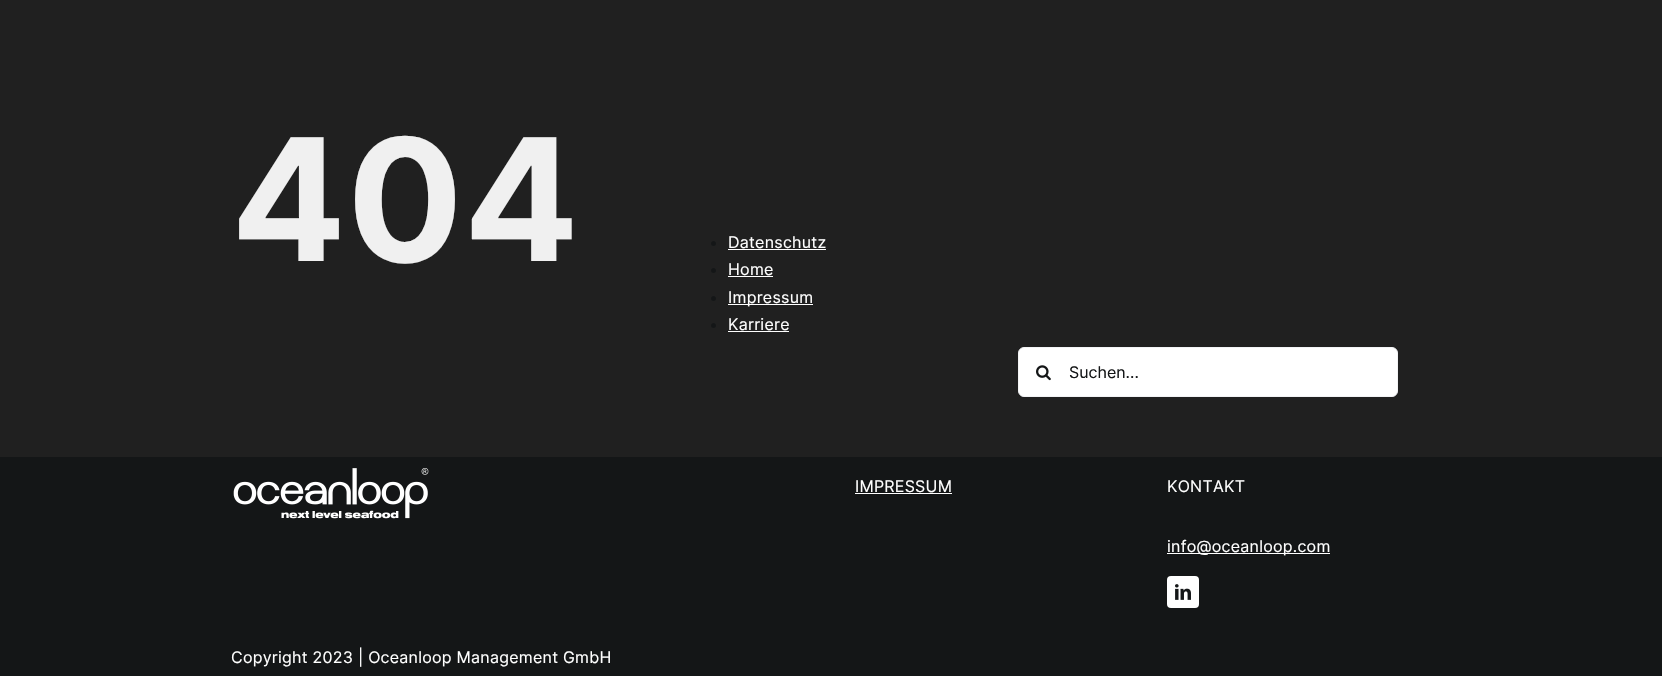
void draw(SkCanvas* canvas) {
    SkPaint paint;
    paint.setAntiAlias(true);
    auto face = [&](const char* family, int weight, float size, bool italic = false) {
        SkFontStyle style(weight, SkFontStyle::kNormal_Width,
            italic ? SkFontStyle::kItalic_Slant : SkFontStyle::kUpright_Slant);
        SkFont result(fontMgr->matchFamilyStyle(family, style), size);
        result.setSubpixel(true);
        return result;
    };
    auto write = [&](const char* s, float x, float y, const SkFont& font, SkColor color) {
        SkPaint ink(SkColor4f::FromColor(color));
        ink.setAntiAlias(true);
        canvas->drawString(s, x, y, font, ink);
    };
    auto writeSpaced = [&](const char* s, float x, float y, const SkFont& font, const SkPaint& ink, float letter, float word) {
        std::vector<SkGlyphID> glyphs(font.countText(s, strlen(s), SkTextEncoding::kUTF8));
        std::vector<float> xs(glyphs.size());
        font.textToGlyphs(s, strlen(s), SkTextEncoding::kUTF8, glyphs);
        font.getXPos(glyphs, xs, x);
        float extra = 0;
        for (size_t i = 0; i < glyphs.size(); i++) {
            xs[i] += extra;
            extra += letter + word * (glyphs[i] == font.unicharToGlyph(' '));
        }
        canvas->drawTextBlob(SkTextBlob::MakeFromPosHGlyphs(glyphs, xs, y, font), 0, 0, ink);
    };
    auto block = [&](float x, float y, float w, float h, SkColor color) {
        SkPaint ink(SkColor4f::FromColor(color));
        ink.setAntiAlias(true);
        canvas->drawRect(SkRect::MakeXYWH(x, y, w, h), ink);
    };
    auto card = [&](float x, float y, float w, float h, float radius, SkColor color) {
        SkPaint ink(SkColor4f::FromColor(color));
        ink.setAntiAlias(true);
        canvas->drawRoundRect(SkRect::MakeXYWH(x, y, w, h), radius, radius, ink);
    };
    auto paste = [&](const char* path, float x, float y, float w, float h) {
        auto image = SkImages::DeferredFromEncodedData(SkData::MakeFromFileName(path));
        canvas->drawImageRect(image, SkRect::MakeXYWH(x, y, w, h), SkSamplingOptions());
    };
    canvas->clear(SkColorSetRGB(32, 32, 32));
    auto kFont1 = face("Inter", 700, 170);
    paint.setColor(SkColorSetRGB(240, 240, 240));
    writeSpaced("404", 231, 261, kFont1, paint, 0.25f, 0);
    paint.setColor(SkColorSetRGB(20, 22, 23));
    canvas->drawCircle(713.5f, 243.5f, 2.5f, paint);
    auto kFont2 = face("Inter", 400, 16);
    paint.setColor(SK_ColorWHITE);
    writeSpaced("Datenschutz", 728, 248, kFont2, paint, 0.25f, 0);
    block(728, 249, 98, 1, SK_ColorWHITE);
    paint.setColor(SkColorSetRGB(20, 22, 23));
    canvas->drawCircle(713.5f, 270.5f, 2.5f, paint);
    paint.setColor(SK_ColorWHITE);
    writeSpaced("Home", 728, 275, kFont2, paint, 0.25f, 0);
    block(728, 276, 45, 1, SK_ColorWHITE);
    paint.setColor(SkColorSetRGB(20, 22, 23));
    canvas->drawCircle(713.5f, 298.5f, 2.5f, paint);
    block(728, 304, 85, 1, SK_ColorWHITE);
    paint.setColor(SK_ColorWHITE);
    writeSpaced("Impressum", 728, 303, kFont2, paint, 0.25f, 0);
    paint.setColor(SkColorSetRGB(20, 22, 23));
    canvas->drawCircle(713.5f, 325.5f, 2.5f, paint);
    paint.setColor(SK_ColorWHITE);
    writeSpaced("Karriere", 728, 330, kFont2, paint, 0.25f, 0);
    block(728, 331, 61, 1, SK_ColorWHITE);
    canvas->drawRoundRect(SkRect::MakeXYWH(1018.5f, 347.5f, 379, 49), 5.5f, 5.5f, paint);
    paint.setStyle(SkPaint::kStroke_Style);
    paint.setStrokeWidth(1);
    paint.setColor(SkColorSetRGB(242, 243, 245));
    canvas->drawRoundRect(SkRect::MakeXYWH(1018.5f, 347.5f, 379, 49), 5.5f, 5.5f, paint);
    paste("pic1.png", 1036, 365, 15, 16);
    write("Suchen...", 1069, 378, kFont2, SkColorSetRGB(20, 22, 23));
    block(0, 457, 1662, 219, SkColorSetRGB(20, 22, 23));
    paste("pic2.png", 233, 468, 196, 51);
    paint.setStyle(SkPaint::kFill_Style);
    paint.setColor(SK_ColorWHITE);
    writeSpaced("IMPRESSUM", 855, 492, kFont2, paint, 0.25f, 0);
    block(855, 493, 97, 1, SK_ColorWHITE);
    writeSpaced("KONTAKT", 1167, 492, kFont2, paint, 0.25f, 0);
    block(1167, 553, 163, 1, SK_ColorWHITE);
    writeSpaced("info@oceanloop.com", 1167, 552, kFont2, paint, 0.25f, 0);
    card(1167, 576, 32, 32, 4, SK_ColorWHITE);
    paste("pic3.png", 1175, 584, 16, 16);
    writeSpaced("Copyright 2023 | Oceanloop Management GmbH", 231, 663, kFont2, paint, 0.25f, 0);
}
